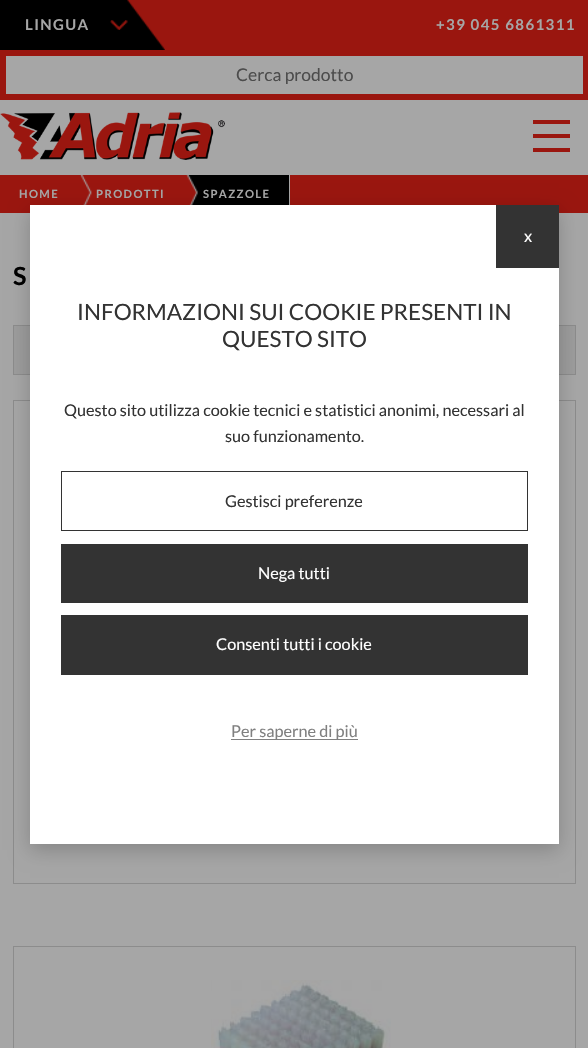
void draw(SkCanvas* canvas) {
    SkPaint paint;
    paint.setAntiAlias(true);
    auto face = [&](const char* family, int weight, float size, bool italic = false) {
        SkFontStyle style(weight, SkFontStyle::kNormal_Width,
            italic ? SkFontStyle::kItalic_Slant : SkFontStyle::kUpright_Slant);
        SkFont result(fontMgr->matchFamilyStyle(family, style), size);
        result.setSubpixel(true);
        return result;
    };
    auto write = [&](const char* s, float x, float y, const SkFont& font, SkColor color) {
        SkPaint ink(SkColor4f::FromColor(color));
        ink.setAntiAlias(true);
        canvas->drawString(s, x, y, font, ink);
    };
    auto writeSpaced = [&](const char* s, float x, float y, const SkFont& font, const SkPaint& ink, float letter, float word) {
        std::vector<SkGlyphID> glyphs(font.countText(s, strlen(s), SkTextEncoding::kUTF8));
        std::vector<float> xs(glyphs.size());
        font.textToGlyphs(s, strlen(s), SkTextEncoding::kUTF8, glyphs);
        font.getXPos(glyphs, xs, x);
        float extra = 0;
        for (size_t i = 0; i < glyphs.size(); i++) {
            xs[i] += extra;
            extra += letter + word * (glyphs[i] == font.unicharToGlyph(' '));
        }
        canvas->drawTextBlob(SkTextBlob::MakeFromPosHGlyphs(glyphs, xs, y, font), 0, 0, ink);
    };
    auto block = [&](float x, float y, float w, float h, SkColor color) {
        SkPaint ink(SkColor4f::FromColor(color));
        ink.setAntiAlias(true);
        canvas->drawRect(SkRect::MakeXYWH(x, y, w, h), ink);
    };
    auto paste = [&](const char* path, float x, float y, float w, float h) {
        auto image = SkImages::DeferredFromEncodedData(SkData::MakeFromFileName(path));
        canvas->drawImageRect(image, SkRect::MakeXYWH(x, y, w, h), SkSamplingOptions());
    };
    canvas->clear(SkColorSetRGB(166, 166, 166));
    block(0, 0, 588, 100, SkColorSetRGB(154, 22, 15));
    block(0, 0, 165, 50, SK_ColorBLACK);
    paste("pic1.png", 110, 20, 18, 10);
    auto kFont1 = face("Lato", 700, 15);
    paint.setColor(SkColorSetRGB(166, 166, 166));
    writeSpaced("LINGUA", 25, 30, kFont1, paint, 1.4f, 0);
    paste("pic2.png", 127, 0, 38, 50);
    writeSpaced("+39 045 6861311", 436, 30, kFont1, paint, 1.4f, 0);
    block(6, 56, 577, 38, SkColorSetRGB(166, 166, 166));
    auto kFont2 = face("Lato", 400, 17.5f);
    write("Cerca prodotto", 236, 81, kFont2, SkColorSetRGB(76, 76, 76));
    paste("pic3.png", 0, 112, 225, 48);
    block(533, 120, 37, 4, SkColorSetRGB(154, 22, 15));
    block(533, 134, 37, 4, SkColorSetRGB(154, 22, 15));
    block(533, 148, 37, 4, SkColorSetRGB(154, 22, 15));
    block(0, 175, 588, 38, SkColorSetRGB(154, 22, 15));
    auto kFont3 = face("Lato", 700, 11.25f);
    writeSpaced("HOME", 19, 198, kFont3, paint, 1.4f, 0);
    paste("pic4.png", 80, 175, 12, 30);
    writeSpaced("PRODOTTI", 96, 198, kFont3, paint, 1.4f, 0);
    block(187, 175, 102, 30, SK_ColorBLACK);
    paste("pic5.png", 184, 175, 14, 30);
    block(289, 175, 1, 38, SkColorSetRGB(166, 166, 166));
    writeSpaced("SPAZZOLE", 203, 198, kFont3, paint, 1.4f, 0);
    auto kFont4 = face("Lato", 700, 25);
    paint.setColor(SK_ColorBLACK);
    writeSpaced("S", 13, 285, kFont4, paint, 1.4f, 0);
    block(14, 326, 16, 48, SkColorSetRGB(156, 156, 156));
    paint.setStyle(SkPaint::kStroke_Style);
    paint.setStrokeWidth(1);
    paint.setColor(SkColorSetRGB(140, 140, 140));
    canvas->drawRect(SkRect::MakeXYWH(13.5f, 325.5f, 269, 49), paint);
    block(559, 326, 16, 48, SkColorSetRGB(156, 156, 156));
    canvas->drawRect(SkRect::MakeXYWH(308.5f, 325.5f, 267, 49), paint);
    canvas->drawRect(SkRect::MakeXYWH(13.5f, 400.5f, 562, 483), paint);
    canvas->drawRect(SkRect::MakeXYWH(13.5f, 946.5f, 562, 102), paint);
    paste("pic6.png", 211, 980, 180, 68);
    paint.setStyle(SkPaint::kFill_Style);
    paint.setColor(SkColorSetARGB(51, 0, 0, 0));
    paint.setMaskFilter(SkMaskFilter::MakeBlur(kNormal_SkBlurStyle, 9.5f));
    canvas->drawRect(SkRect::MakeXYWH(30, 211, 529, 639), paint);
    paint.setMaskFilter(nullptr);
    block(30, 205, 529, 639, SK_ColorWHITE);
    block(496, 205, 63, 63, SkColorSetRGB(51, 51, 51));
    auto kFont5 = face("Lato", 400, 16.25f);
    write("x", 524, 242, kFont5, SK_ColorWHITE);
    auto kFont6 = face("Lato", 400, 22.5f);
    write("INFORMAZIONI SUI COOKIE PRESENTI IN", 77, 320, kFont6, SkColorSetRGB(51, 51, 51));
    write("QUESTO SITO", 222, 347, kFont6, SkColorSetRGB(51, 51, 51));
    write("Questo sito utilizza cookie tecnici e statistici anonimi, necessari al", 64, 416, kFont5, SkColorSetRGB(51, 51, 51));
    write("suo funzionamento.", 225, 442, kFont5, SkColorSetRGB(51, 51, 51));
    paint.setStyle(SkPaint::kStroke_Style);
    paint.setColor(SkColorSetRGB(51, 51, 51));
    canvas->drawRect(SkRect::MakeXYWH(61.5f, 471.5f, 466, 59), paint);
    write("Gestisci preferenze", 225, 507, kFont5, SkColorSetRGB(51, 51, 51));
    block(61, 544, 467, 59, SkColorSetRGB(51, 51, 51));
    write("Nega tutti", 258, 579, kFont5, SK_ColorWHITE);
    block(61, 615, 467, 60, SkColorSetRGB(51, 51, 51));
    write("Consenti tutti i cookie", 216, 650, kFont5, SK_ColorWHITE);
    block(231, 739, 127, 1, SkColorSetRGB(128, 128, 128));
    write("Per saperne di più", 231, 737, kFont5, SkColorSetRGB(128, 128, 128));
}
